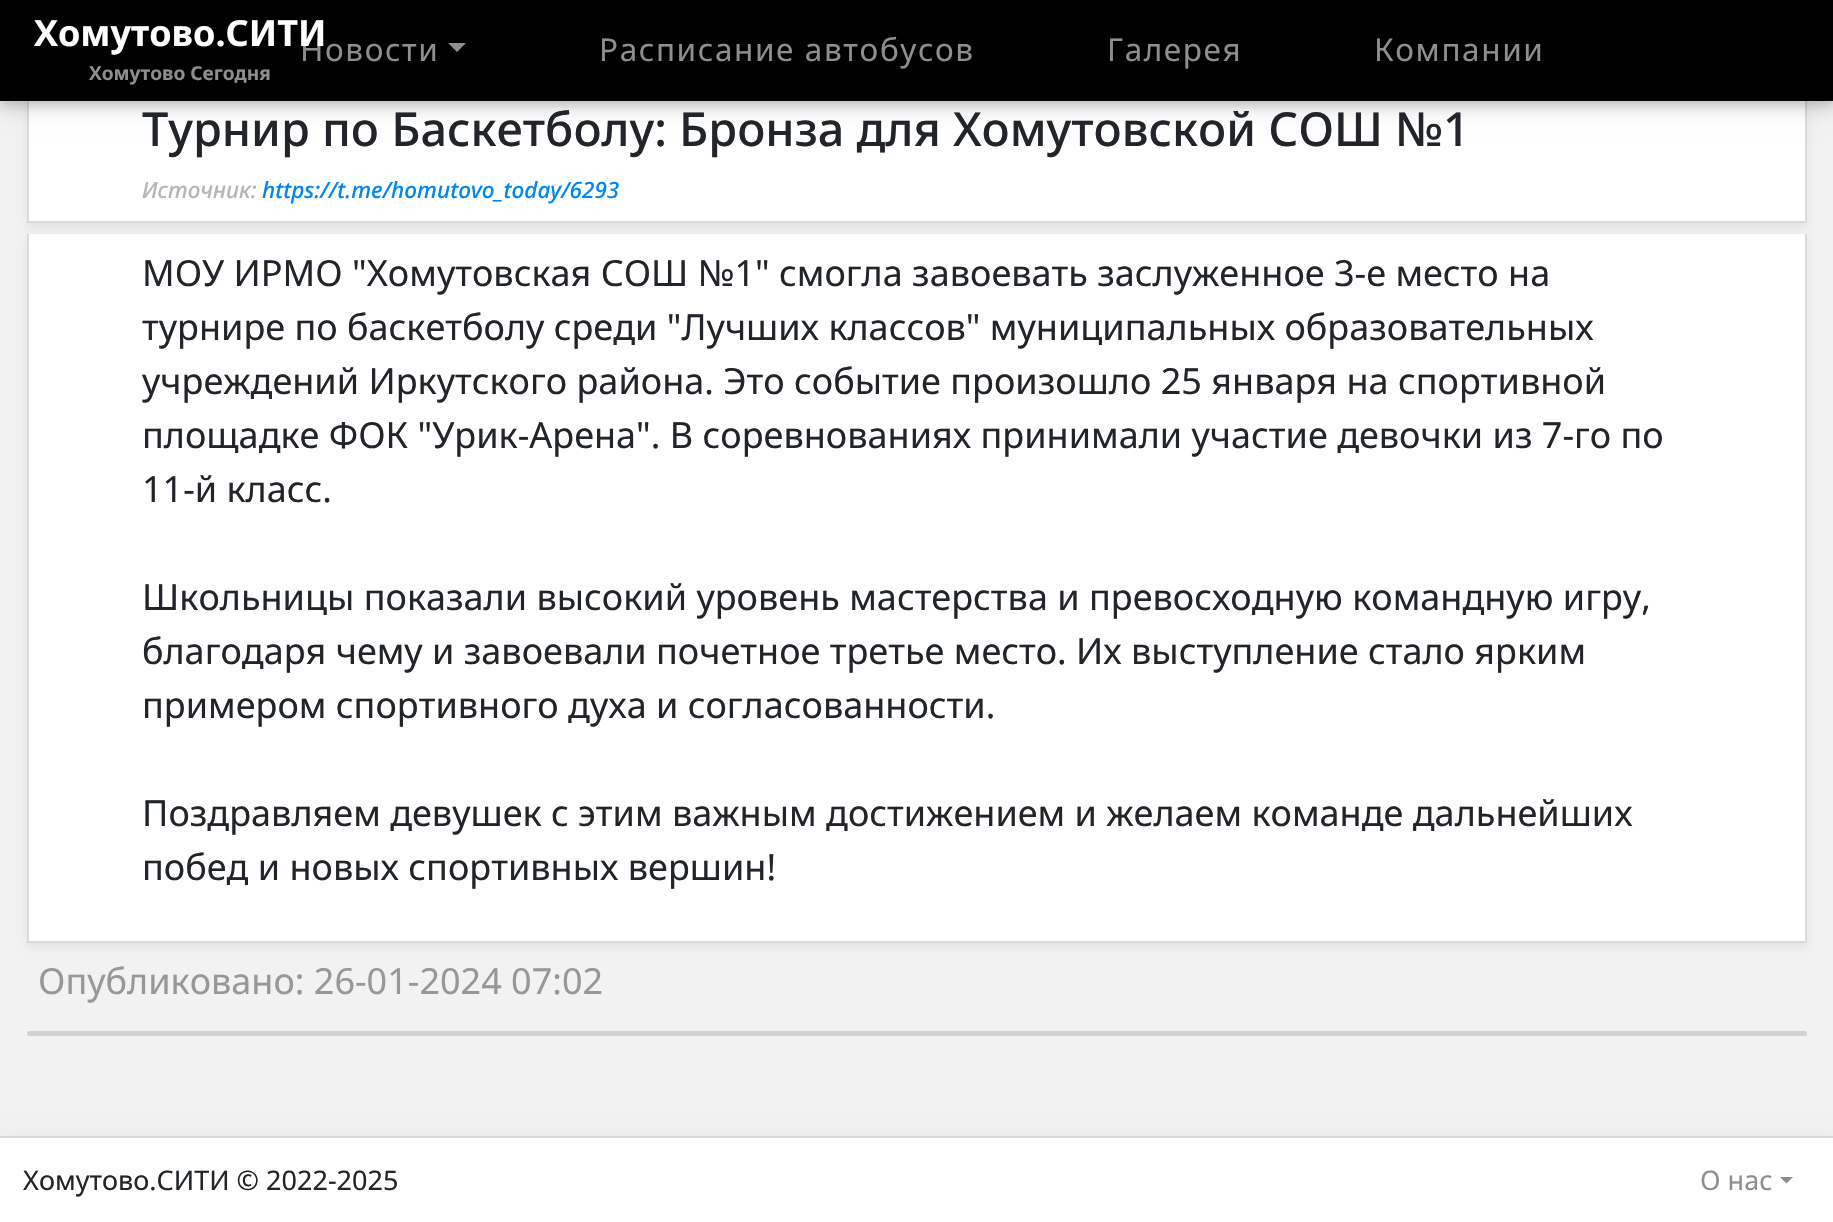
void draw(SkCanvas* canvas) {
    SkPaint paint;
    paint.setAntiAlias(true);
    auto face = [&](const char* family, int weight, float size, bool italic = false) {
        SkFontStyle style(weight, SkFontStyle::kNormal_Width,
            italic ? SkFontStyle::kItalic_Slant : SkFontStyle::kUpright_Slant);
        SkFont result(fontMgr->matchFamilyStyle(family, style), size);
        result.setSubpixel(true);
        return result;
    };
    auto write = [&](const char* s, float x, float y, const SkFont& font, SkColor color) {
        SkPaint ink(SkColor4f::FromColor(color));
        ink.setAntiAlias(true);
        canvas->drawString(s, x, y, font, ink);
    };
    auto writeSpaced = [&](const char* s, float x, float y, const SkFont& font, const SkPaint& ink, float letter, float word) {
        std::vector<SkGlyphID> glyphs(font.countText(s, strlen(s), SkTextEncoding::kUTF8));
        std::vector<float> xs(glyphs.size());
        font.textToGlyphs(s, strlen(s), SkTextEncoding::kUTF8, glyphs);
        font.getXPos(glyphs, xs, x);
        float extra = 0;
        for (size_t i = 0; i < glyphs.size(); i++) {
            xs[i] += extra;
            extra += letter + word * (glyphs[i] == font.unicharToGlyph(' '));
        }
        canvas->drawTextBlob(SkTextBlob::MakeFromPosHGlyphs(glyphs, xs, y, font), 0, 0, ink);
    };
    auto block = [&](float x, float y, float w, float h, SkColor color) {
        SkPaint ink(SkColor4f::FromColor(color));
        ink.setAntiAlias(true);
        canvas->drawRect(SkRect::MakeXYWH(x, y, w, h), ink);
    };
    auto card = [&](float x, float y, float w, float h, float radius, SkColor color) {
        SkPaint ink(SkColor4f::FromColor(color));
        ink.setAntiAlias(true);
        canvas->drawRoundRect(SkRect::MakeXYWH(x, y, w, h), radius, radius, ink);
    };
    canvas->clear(SkColorSetRGB(242, 242, 242));
    paint.setColor(SkColorSetARGB(18, 0, 0, 0));
    paint.setMaskFilter(SkMaskFilter::MakeBlur(kNormal_SkBlurStyle, 4.5f));
    canvas->drawRect(SkRect::MakeXYWH(27, 239, 1780, 708), paint);
    paint.setMaskFilter(nullptr);
    block(29, 234, 1776, 707, SK_ColorWHITE);
    block(1805, 234, 2, 709, SkColorSetRGB(218, 218, 218));
    block(27, 941, 1780, 2, SkColorSetRGB(218, 218, 218));
    block(27, 234, 2, 709, SkColorSetRGB(218, 218, 218));
    paint.setMaskFilter(SkMaskFilter::MakeBlur(kNormal_SkBlurStyle, 4.5f));
    canvas->drawRect(SkRect::MakeXYWH(27, 106, 1780, 121), paint);
    paint.setMaskFilter(nullptr);
    block(29, 101, 1776, 120, SK_ColorWHITE);
    block(1805, 101, 2, 122, SkColorSetRGB(218, 218, 218));
    block(27, 221, 1780, 2, SkColorSetRGB(218, 218, 218));
    block(27, 101, 2, 122, SkColorSetRGB(218, 218, 218));
    paint.setColor(SkColorSetARGB(31, 0, 0, 0));
    paint.setMaskFilter(SkMaskFilter::MakeBlur(kNormal_SkBlurStyle, 11));
    canvas->drawRect(SkRect::MakeXYWH(0, 5, 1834, 101), paint);
    paint.setMaskFilter(nullptr);
    paint.setColor(SkColorSetARGB(41, 0, 0, 0));
    paint.setMaskFilter(SkMaskFilter::MakeBlur(kNormal_SkBlurStyle, 5.5f));
    canvas->drawRect(SkRect::MakeXYWH(0, 5, 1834, 101), paint);
    paint.setMaskFilter(nullptr);
    block(0, 0, 1833, 101, SK_ColorBLACK);
    auto kFont1 = face("Noto Sans", 400, 31.5f);
    paint.setColor(SkColorSetRGB(142, 142, 142));
    writeSpaced("Новости", 300, 61, kFont1, paint, 1.6f, 0);
    auto kFont2 = face("Noto Sans", 700, 36);
    write("Хомутово.СИТИ", 34, 46, kFont2, SK_ColorWHITE);
    auto kFont3 = face("Noto Sans", 700, 19.1f);
    write("Хомутово Сегодня", 89, 80, kFont3, SkColorSetRGB(142, 142, 142));
    canvas->drawPath(SkPathBuilder().moveTo(448, 43).lineTo(466, 43).lineTo(457, 52).close().detach(), paint);
    writeSpaced("Расписание автобусов", 599, 61, kFont1, paint, 1.6f, 0);
    writeSpaced("Галерея", 1107, 61, kFont1, paint, 1.6f, 0);
    writeSpaced("Компании", 1374, 61, kFont1, paint, 1.6f, 0);
    auto kFont4 = face("Noto Sans", 500, 46.8f);
    write("Турнир по Баскетболу: Бронза для Хомутовской СОШ №1", 142, 146, kFont4, SkColorSetRGB(33, 37, 41));
    auto kFont5 = face("Noto Sans", 500, 22.5f, true);
    write("Источник:", 142, 198, kFont5, SkColorSetRGB(186, 180, 180));
    write("https://t.me/homutovo_today/6293", 262, 198, kFont5, SkColorSetRGB(0, 135, 239));
    auto kFont6 = face("Noto Sans", 400, 36);
    write("МОУ ИРМО \"Хомутовская СОШ №1\" смогла завоевать заслуженное 3-е место на", 142, 286, kFont6, SkColorSetRGB(33, 37, 41));
    write("турнире по баскетболу среди \"Лучших классов\" муниципальных образовательных", 142, 340, kFont6, SkColorSetRGB(33, 37, 41));
    write("учреждений Иркутского района. Это событие произошло 25 января на спортивной", 142, 394, kFont6, SkColorSetRGB(33, 37, 41));
    write("площадке ФОК \"Урик-Арена\". В соревнованиях принимали участие девочки из 7-го по", 142, 448, kFont6, SkColorSetRGB(33, 37, 41));
    write("11-й класс.", 142, 502, kFont6, SkColorSetRGB(33, 37, 41));
    write("Школьницы показали высокий уровень мастерства и превосходную командную игру,", 142, 610, kFont6, SkColorSetRGB(33, 37, 41));
    write("благодаря чему и завоевали почетное третье место. Их выступление стало ярким", 142, 664, kFont6, SkColorSetRGB(33, 37, 41));
    write("примером спортивного духа и согласованности.", 142, 718, kFont6, SkColorSetRGB(33, 37, 41));
    write("Поздравляем девушек с этим важным достижением и желаем команде дальнейших", 142, 826, kFont6, SkColorSetRGB(33, 37, 41));
    write("побед и новых спортивных вершин!", 142, 880, kFont6, SkColorSetRGB(33, 37, 41));
    write("Опубликовано: 26-01-2024 07:02", 38, 994, kFont6, SkColorSetRGB(151, 151, 151));
    card(27, 1031, 1780, 5, 2.5f, SK_ColorWHITE);
    card(27, 1031, 1780, 5, 2.5f, SkColorSetARGB(46, 0, 0, 0));
    paint.setColor(SkColorSetARGB(38, 0, 0, 0));
    paint.setMaskFilter(SkMaskFilter::MakeBlur(kNormal_SkBlurStyle, 18));
    canvas->drawRect(SkRect::MakeXYWH(0, 1154, 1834, 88), paint);
    paint.setMaskFilter(nullptr);
    block(0, 1138, 1833, 84, SK_ColorWHITE);
    block(0, 1136, 1833, 2, SkColorSetRGB(218, 218, 218));
    auto kFont7 = face("Noto Sans", 400, 27);
    write("Хомутово.СИТИ © 2022-2025", 23, 1190, kFont7, SkColorSetRGB(33, 37, 41));
    write("О нас", 1700, 1190, kFont7, SkColorSetRGB(142, 142, 142));
    paint.setColor(SkColorSetRGB(142, 142, 142));
    canvas->drawPath(SkPathBuilder().moveTo(1780, 1177).lineTo(1793, 1177).lineTo(1786.5f, 1183.5f).close().detach(), paint);
}
